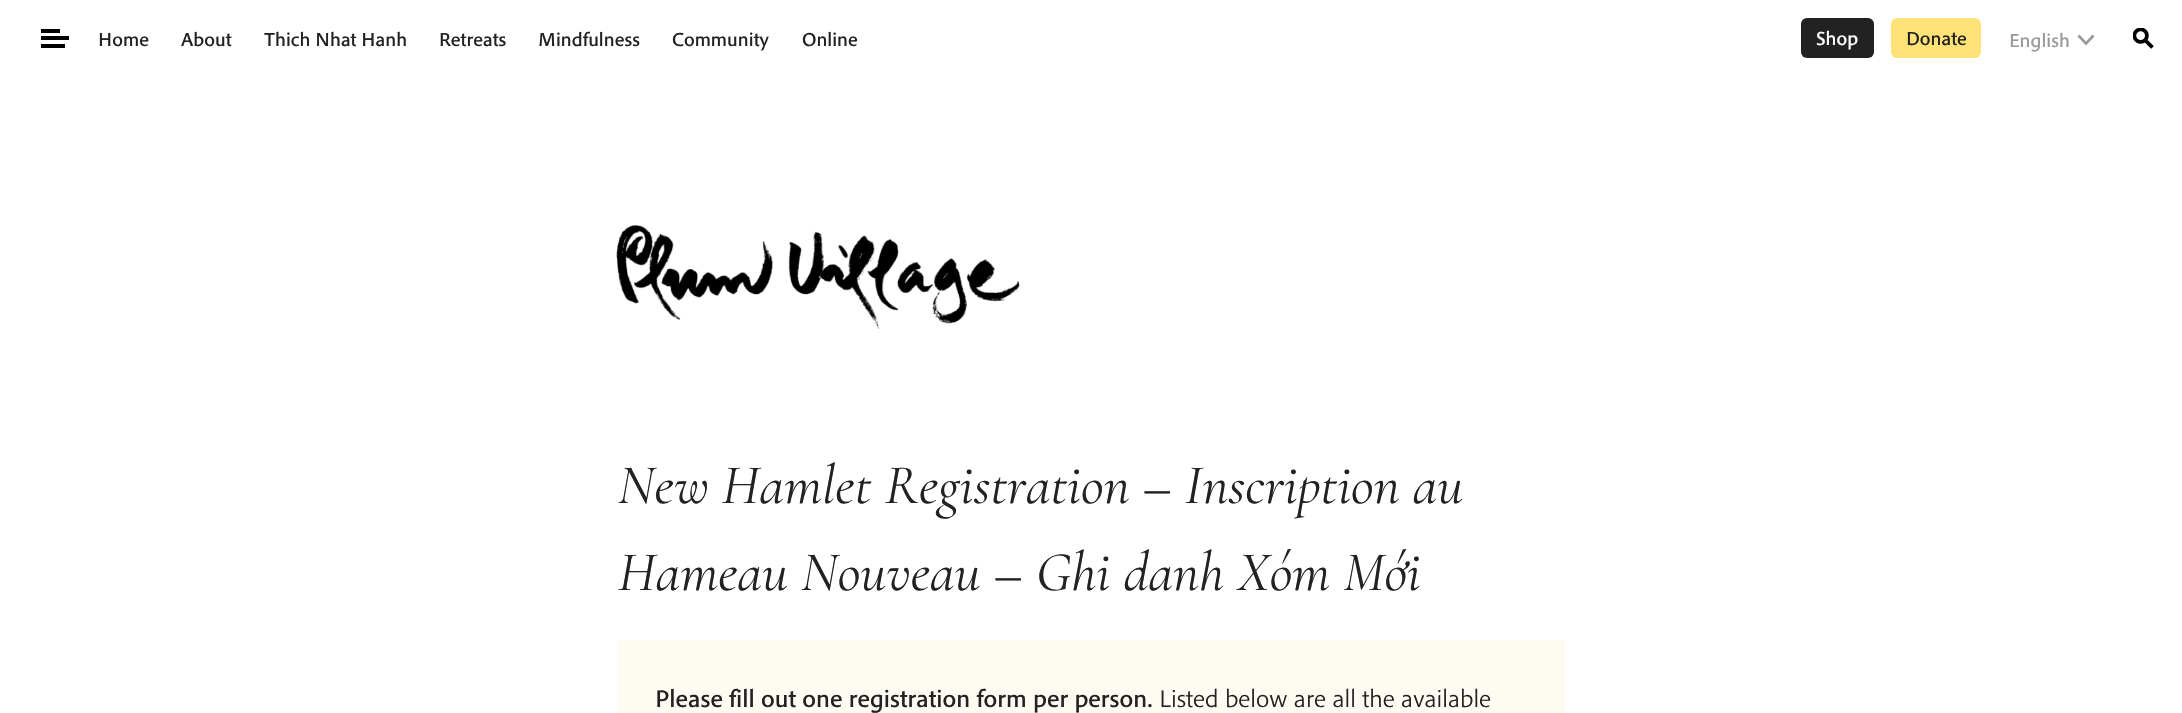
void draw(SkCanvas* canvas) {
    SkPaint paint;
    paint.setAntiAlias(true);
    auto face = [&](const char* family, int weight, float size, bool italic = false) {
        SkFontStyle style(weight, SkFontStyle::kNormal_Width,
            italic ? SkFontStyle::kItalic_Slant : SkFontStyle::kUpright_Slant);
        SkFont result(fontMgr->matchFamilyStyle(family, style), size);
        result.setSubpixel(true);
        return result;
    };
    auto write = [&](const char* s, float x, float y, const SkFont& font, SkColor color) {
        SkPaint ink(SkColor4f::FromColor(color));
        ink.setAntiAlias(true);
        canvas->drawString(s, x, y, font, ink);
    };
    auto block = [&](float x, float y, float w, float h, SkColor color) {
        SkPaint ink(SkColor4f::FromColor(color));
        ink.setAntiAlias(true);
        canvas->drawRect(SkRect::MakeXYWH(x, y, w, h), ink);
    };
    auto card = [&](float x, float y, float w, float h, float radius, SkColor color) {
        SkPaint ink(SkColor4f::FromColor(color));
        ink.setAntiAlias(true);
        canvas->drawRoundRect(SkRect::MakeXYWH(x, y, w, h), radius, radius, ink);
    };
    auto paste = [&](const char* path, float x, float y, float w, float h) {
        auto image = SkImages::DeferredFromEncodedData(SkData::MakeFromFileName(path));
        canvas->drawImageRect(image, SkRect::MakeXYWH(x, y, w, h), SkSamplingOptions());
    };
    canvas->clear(SK_ColorWHITE);
    block(41, 36, 28, 4, SK_ColorBLACK);
    block(41, 29, 19, 4, SK_ColorBLACK);
    block(41, 44, 24, 4, SK_ColorBLACK);
    auto kFont1 = face("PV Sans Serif", 500, 19.75f);
    write("Home", 98, 46, kFont1, SkColorSetRGB(34, 34, 34));
    write("About", 181, 46, kFont1, SkColorSetRGB(34, 34, 34));
    write("Thich Nhat Hanh", 264, 46, kFont1, SkColorSetRGB(34, 34, 34));
    write("Retreats", 439, 46, kFont1, SkColorSetRGB(34, 34, 34));
    write("Mindfulness", 538, 46, kFont1, SkColorSetRGB(34, 34, 34));
    write("Community", 672, 46, kFont1, SkColorSetRGB(34, 34, 34));
    write("Online", 802, 46, kFont1, SkColorSetRGB(34, 34, 34));
    card(1801, 18, 73, 40, 6, SkColorSetRGB(34, 34, 34));
    write("Shop", 1816, 45, kFont1, SK_ColorWHITE);
    card(1891, 18, 90, 40, 6, SkColorSetRGB(255, 226, 119));
    write("Donate", 1906, 45, kFont1, SkColorSetRGB(34, 34, 34));
    write("English", 2009, 47, kFont1, SkColorSetRGB(154, 154, 154));
    paint.setColor(SkColorSetRGB(154, 154, 154));
    canvas->drawPath(SkPathBuilder().moveTo(2086, 41.5f).lineTo(2092.5f, 34.5f).lineTo(2094.5f, 36.5f).lineTo(2086, 45.5f).lineTo(2077.5f, 36.5f).lineTo(2079.5f, 34.5f).close().detach(), paint);
    paste("pic1.png", 2133, 28, 21, 21);
    paste("pic2.png", 616, 225, 404, 104);
    auto kFont2 = face("Cormorant Garamond", 400, 56.25f, true);
    write("New Hamlet Registration – Inscription au", 618, 503, kFont2, SkColorSetRGB(34, 34, 34));
    write("Hameau Nouveau – Ghi danh Xóm Mới", 618, 590, kFont2, SkColorSetRGB(34, 34, 34));
    block(618, 640, 947, 73, SkColorSetRGB(254, 251, 243));
    auto kFont3 = face("PV Sans Serif", 500, 25.3f);
    write("Please fill out one registration form per person.", 655, 707, kFont3, SkColorSetRGB(34, 34, 34));
    auto kFont4 = face("PV Sans Serif", 300, 25.3f);
    write("Listed below are all the available", 1159, 707, kFont4, SkColorSetRGB(34, 34, 34));
}
